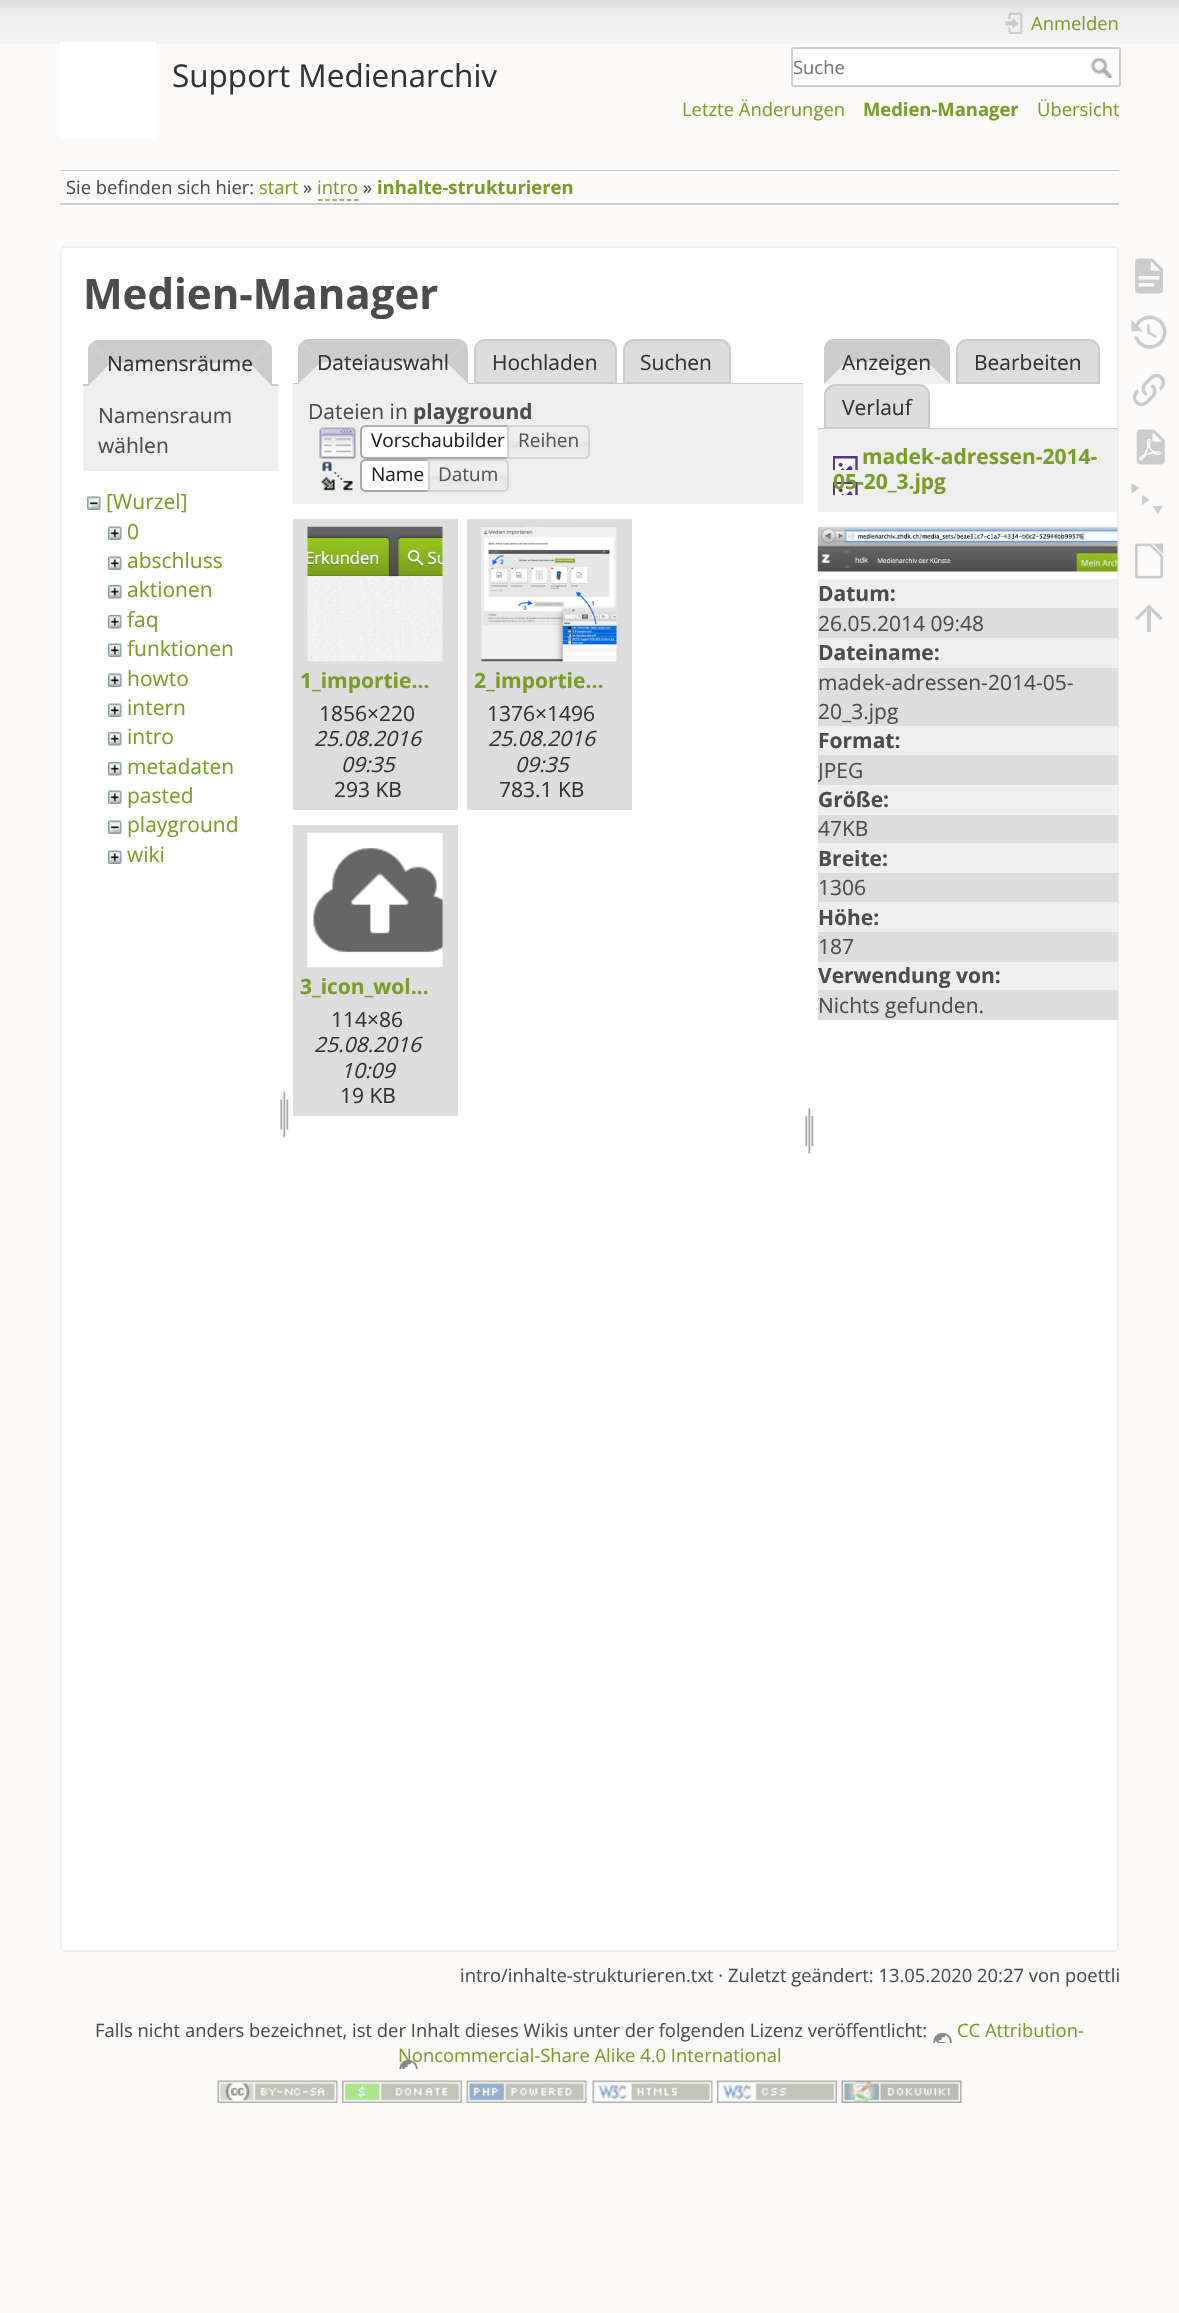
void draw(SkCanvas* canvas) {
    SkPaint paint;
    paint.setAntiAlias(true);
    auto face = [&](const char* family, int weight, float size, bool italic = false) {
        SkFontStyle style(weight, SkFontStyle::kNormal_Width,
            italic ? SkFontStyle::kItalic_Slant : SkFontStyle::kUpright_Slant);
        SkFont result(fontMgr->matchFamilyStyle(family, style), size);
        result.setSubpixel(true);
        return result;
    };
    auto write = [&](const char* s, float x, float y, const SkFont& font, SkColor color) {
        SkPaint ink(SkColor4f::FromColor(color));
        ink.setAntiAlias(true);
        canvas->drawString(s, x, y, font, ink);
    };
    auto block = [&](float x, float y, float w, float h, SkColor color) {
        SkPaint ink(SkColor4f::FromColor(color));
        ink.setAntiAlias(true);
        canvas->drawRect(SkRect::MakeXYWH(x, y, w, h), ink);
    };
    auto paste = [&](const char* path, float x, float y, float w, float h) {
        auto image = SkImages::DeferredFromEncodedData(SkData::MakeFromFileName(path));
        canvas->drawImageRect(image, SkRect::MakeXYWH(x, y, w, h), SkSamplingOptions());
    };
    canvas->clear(SkColorSetRGB(251, 250, 249));
    paste("pic1.png", 0, 0, 1179, 44);
    block(60, 42, 96, 96, SK_ColorWHITE);
    auto kFont1 = face("Open Sans", 400, 31.5f);
    write("Support Medienarchiv", 172, 87, kFont1, SkColorSetRGB(51, 51, 51));
    paste("pic2.png", 1005, 12, 18, 22);
    auto kFont2 = face("Open Sans", 400, 18.4f);
    write("Anmelden", 1031, 30, kFont2, SkColorSetRGB(122, 157, 41));
    paint.setColor(SK_ColorWHITE);
    canvas->drawRoundRect(SkRect::MakeXYWH(792, 48, 328, 38), 2, 2, paint);
    paint.setStyle(SkPaint::kStroke_Style);
    paint.setStrokeWidth(2);
    paint.setColor(SkColorSetRGB(204, 204, 204));
    canvas->drawRoundRect(SkRect::MakeXYWH(792, 48, 328, 38), 2, 2, paint);
    write("Suche", 793, 74, kFont2, SkColorSetRGB(117, 117, 117));
    paste("pic3.png", 1090, 57, 22, 21);
    write("Letzte Änderungen", 682, 116, kFont2, SkColorSetRGB(122, 157, 41));
    auto kFont3 = face("Open Sans", 700, 18.4f);
    write("Medien-Manager", 863, 116, kFont3, SkColorSetRGB(122, 157, 41));
    write("Übersicht", 1037, 116, kFont2, SkColorSetRGB(122, 157, 41));
    block(60, 170, 1059, 1, SkColorSetRGB(204, 204, 204));
    block(60, 205, 1059, 1, SK_ColorWHITE);
    block(60, 171, 1059, 2, SK_ColorWHITE);
    block(60, 203, 1059, 2, SkColorSetRGB(204, 204, 204));
    write("Sie befinden sich hier:", 66, 194, kFont2, SkColorSetRGB(76, 76, 76));
    write("start", 259, 194, kFont2, SkColorSetRGB(122, 157, 41));
    write("»", 303, 194, kFont2, SkColorSetRGB(76, 76, 76));
    write("intro", 317, 194, kFont2, SkColorSetRGB(122, 157, 41));
    paint.setStrokeWidth(1.5f);
    paint.setColor(SkColorSetRGB(122, 157, 41));
    paint.setPathEffect(SkDashPathEffect::Make({{4.5f, 2.7f}}, 0));
    canvas->drawPath(SkPathBuilder().moveTo(318, 200).lineTo(358.5f, 200).detach(), paint);
    paint.setPathEffect(nullptr);
    write("»", 363, 194, kFont2, SkColorSetRGB(76, 76, 76));
    write("inhalte-strukturieren", 377, 194, kFont3, SkColorSetRGB(122, 157, 41));
    paint.setStyle(SkPaint::kFill_Style);
    paint.setColor(SK_ColorWHITE);
    canvas->drawRoundRect(SkRect::MakeXYWH(61, 247, 1057, 1704), 4, 4, paint);
    paint.setStyle(SkPaint::kStroke_Style);
    paint.setStrokeWidth(2);
    paint.setColor(SkColorSetRGB(238, 238, 238));
    canvas->drawRoundRect(SkRect::MakeXYWH(61, 247, 1057, 1704), 4, 4, paint);
    auto kFont4 = face("Open Sans", 700, 42);
    write("Medien-Manager", 83, 309, kFont4, SkColorSetRGB(76, 76, 76));
    paint.setStyle(SkPaint::kFill_Style);
    paint.setColor(SkColorSetRGB(204, 204, 204));
    canvas->drawPath(SkPathBuilder().moveTo(264, 340).lineTo(96, 340).lineTo(91, 343).lineTo(111, 363).lineTo(249, 363).lineTo(269, 343).close().detach(), paint);
    block(83, 384, 195, 2, SkColorSetRGB(204, 204, 204));
    canvas->drawPath(SkPathBuilder().moveTo(269, 343).lineTo(249, 363).lineTo(272, 386).lineTo(272, 348).cubicTo(271, 346, 270, 345, 269, 343).close().detach(), paint);
    paint.setColor(SkColorSetRGB(238, 238, 238));
    canvas->drawPath(SkPathBuilder().moveTo(272, 386).lineTo(249, 363).lineTo(111, 363).lineTo(88, 386).close().detach(), paint);
    paint.setColor(SkColorSetRGB(204, 204, 204));
    canvas->drawPath(SkPathBuilder().moveTo(88, 386).lineTo(111, 363).lineTo(91, 343).lineTo(88, 348).close().detach(), paint);
    auto kFont5 = face("Open Sans", 400, 21);
    write("Namensräume", 107, 371, kFont5, SkColorSetRGB(51, 51, 51));
    block(83, 386, 195, 85, SkColorSetRGB(238, 238, 238));
    write("Namensraum", 98, 423, kFont5, SkColorSetRGB(76, 76, 76));
    write("wählen", 98, 453, kFont5, SkColorSetRGB(76, 76, 76));
    paste("pic4.png", 87, 496, 14, 14);
    write("[Wurzel]", 106, 509, kFont5, SkColorSetRGB(122, 157, 41));
    paste("pic5.png", 108, 526, 14, 14);
    write("0", 127, 539, kFont5, SkColorSetRGB(122, 157, 41));
    paste("pic5.png", 108, 556, 14, 14);
    write("abschluss", 127, 568, kFont5, SkColorSetRGB(122, 157, 41));
    paste("pic6.png", 108, 585, 14, 14);
    write("aktionen", 127, 597, kFont5, SkColorSetRGB(122, 157, 41));
    paste("pic6.png", 108, 615, 14, 14);
    write("faq", 127, 627, kFont5, SkColorSetRGB(122, 157, 41));
    paste("pic5.png", 108, 643, 14, 14);
    write("funktionen", 127, 656, kFont5, SkColorSetRGB(122, 157, 41));
    paste("pic5.png", 108, 673, 14, 14);
    write("howto", 127, 686, kFont5, SkColorSetRGB(122, 157, 41));
    paste("pic5.png", 108, 703, 14, 14);
    write("intern", 127, 715, kFont5, SkColorSetRGB(122, 157, 41));
    paste("pic6.png", 108, 732, 14, 14);
    write("intro", 127, 744, kFont5, SkColorSetRGB(122, 157, 41));
    paste("pic6.png", 108, 762, 14, 14);
    write("metadaten", 127, 774, kFont5, SkColorSetRGB(122, 157, 41));
    paste("pic5.png", 108, 790, 14, 14);
    write("pasted", 127, 803, kFont5, SkColorSetRGB(122, 157, 41));
    paste("pic4.png", 108, 820, 14, 14);
    write("playground", 127, 832, kFont5, SkColorSetRGB(122, 157, 41));
    paste("pic5.png", 108, 850, 14, 14);
    write("wiki", 127, 862, kFont5, SkColorSetRGB(122, 157, 41));
    paste("pic7.png", 280, 1090, 9, 48);
    canvas->drawPath(SkPathBuilder().moveTo(309, 339).lineTo(458, 339).cubicTo(460, 339, 463, 340, 465, 342).lineTo(446, 362).lineTo(321, 362).lineTo(302, 342).cubicTo(303, 340, 306, 339, 309, 339).close().detach(), paint);
    paint.setColor(SkColorSetRGB(221, 221, 221));
    canvas->drawPath(SkPathBuilder().moveTo(485, 340).lineTo(606, 340).cubicTo(611.5f, 340, 616, 344.5f, 616, 350).lineTo(616, 383).lineTo(475, 383).lineTo(475, 350).cubicTo(475, 344.5f, 479.5f, 340, 485, 340).close().detach(), paint);
    paint.setStyle(SkPaint::kStroke_Style);
    paint.setColor(SkColorSetRGB(204, 204, 204));
    canvas->drawPath(SkPathBuilder().moveTo(485, 340).lineTo(606, 340).cubicTo(611.5f, 340, 616, 344.5f, 616, 350).lineTo(616, 383).lineTo(475, 383).lineTo(475, 350).cubicTo(475, 344.5f, 479.5f, 340, 485, 340).close().detach(), paint);
    paint.setStyle(SkPaint::kFill_Style);
    paint.setColor(SkColorSetRGB(221, 221, 221));
    canvas->drawPath(SkPathBuilder().moveTo(634, 340).lineTo(720, 340).cubicTo(725.5f, 340, 730, 344.5f, 730, 350).lineTo(730, 383).lineTo(624, 383).lineTo(624, 350).cubicTo(624, 344.5f, 628.5f, 340, 634, 340).close().detach(), paint);
    paint.setStyle(SkPaint::kStroke_Style);
    paint.setColor(SkColorSetRGB(204, 204, 204));
    canvas->drawPath(SkPathBuilder().moveTo(634, 340).lineTo(720, 340).cubicTo(725.5f, 340, 730, 344.5f, 730, 350).lineTo(730, 383).lineTo(624, 383).lineTo(624, 350).cubicTo(624, 344.5f, 628.5f, 340, 634, 340).close().detach(), paint);
    block(293, 383, 510, 1, SkColorSetRGB(204, 204, 204));
    paint.setStyle(SkPaint::kFill_Style);
    canvas->drawPath(SkPathBuilder().moveTo(465, 342).lineTo(446, 362).lineTo(468, 384).lineTo(468, 350).cubicTo(468, 347, 467, 344, 465, 342).close().detach(), paint);
    paint.setColor(SkColorSetRGB(238, 238, 238));
    canvas->drawPath(SkPathBuilder().moveTo(468, 384).lineTo(446, 362).lineTo(321, 362).lineTo(298, 384).close().detach(), paint);
    paint.setColor(SkColorSetRGB(204, 204, 204));
    canvas->drawPath(SkPathBuilder().moveTo(298, 384).lineTo(321, 362).lineTo(302, 342).cubicTo(300, 343, 299, 345, 298, 347).close().detach(), paint);
    write("Dateiauswahl", 317, 370, kFont5, SkColorSetRGB(51, 51, 51));
    write("Hochladen", 492, 370, kFont5, SkColorSetRGB(51, 51, 51));
    write("Suchen", 640, 370, kFont5, SkColorSetRGB(51, 51, 51));
    block(293, 384, 510, 120, SkColorSetRGB(238, 238, 238));
    write("Dateien in", 308, 419, kFont5, SkColorSetRGB(76, 76, 76));
    auto kFont6 = face("Open Sans", 700, 21);
    write("playground", 413, 419, kFont6, SkColorSetRGB(76, 76, 76));
    paste("pic8.png", 319, 427, 37, 32);
    paint.setColor(SK_ColorWHITE);
    canvas->drawPath(SkPathBuilder().moveTo(366, 425).lineTo(515, 425).lineTo(515, 459).lineTo(366, 459).cubicTo(362.5f, 459, 360, 456.5f, 360, 453).lineTo(360, 431).cubicTo(360, 427.5f, 362.5f, 425, 366, 425).close().detach(), paint);
    paste("pic9.png", 360, 424, 154, 5);
    paint.setStyle(SkPaint::kStroke_Style);
    paint.setColor(SkColorSetRGB(170, 170, 170));
    canvas->drawPath(SkPathBuilder().moveTo(366, 426).lineTo(514, 426).lineTo(514, 458).lineTo(366, 458).cubicTo(363, 458, 361, 456, 361, 453).lineTo(361, 431).cubicTo(361, 428, 363, 426, 366, 426).close().detach(), paint);
    auto kFont7 = face("Open Sans", 400, 19);
    write("Vorschaubilder", 371, 447, kFont7, SkColorSetRGB(33, 33, 33));
    paste("pic10.png", 509, 425, 80, 34);
    paint.setColor(SkColorSetRGB(211, 211, 211));
    canvas->drawPath(SkPathBuilder().moveTo(508, 426).lineTo(584, 426).cubicTo(587, 426, 589, 428, 589, 431).lineTo(589, 453).cubicTo(589, 456, 587, 458, 584, 458).lineTo(508, 458).close().detach(), paint);
    write("Reihen", 518, 447, kFont7, SkColorSetRGB(85, 85, 85));
    paste("pic11.png", 320, 461, 33, 30);
    paint.setStyle(SkPaint::kFill_Style);
    paint.setColor(SK_ColorWHITE);
    canvas->drawPath(SkPathBuilder().moveTo(366, 460).lineTo(434, 460).lineTo(434, 491).lineTo(366, 491).cubicTo(363, 491, 361, 489, 361, 486).lineTo(361, 465).cubicTo(361, 462, 363, 460, 366, 460).close().detach(), paint);
    paint.setStyle(SkPaint::kStroke_Style);
    paint.setColor(SkColorSetRGB(170, 170, 170));
    canvas->drawPath(SkPathBuilder().moveTo(366, 460).lineTo(434, 460).lineTo(434, 491).lineTo(366, 491).cubicTo(363, 491, 361, 489, 361, 486).lineTo(361, 465).cubicTo(361, 462, 363, 460, 366, 460).close().detach(), paint);
    write("Name", 371, 481, kFont7, SkColorSetRGB(33, 33, 33));
    paste("pic12.png", 427, 459, 81, 33);
    paint.setColor(SkColorSetRGB(211, 211, 211));
    canvas->drawPath(SkPathBuilder().moveTo(429, 460).lineTo(503, 460).cubicTo(506, 460, 508, 462, 508, 465).lineTo(508, 486).cubicTo(508, 489, 506, 491, 503, 491).lineTo(429, 491).close().detach(), paint);
    write("Datum", 438, 481, kFont7, SkColorSetRGB(85, 85, 85));
    block(293, 519, 165, 291, SkColorSetRGB(221, 221, 221));
    paste("pic13.png", 307, 526, 136, 136);
    write("1_importie…", 300, 688, kFont6, SkColorSetRGB(122, 157, 41));
    write("1856×220", 319, 721, kFont5, SkColorSetRGB(51, 51, 51));
    auto kFont8 = face("Open Sans", 400, 21, true);
    write("25.08.2016", 314, 746, kFont8, SkColorSetRGB(51, 51, 51));
    write("09:35", 341, 772, kFont8, SkColorSetRGB(51, 51, 51));
    write("293 KB", 334, 797, kFont5, SkColorSetRGB(51, 51, 51));
    block(467, 519, 165, 291, SkColorSetRGB(221, 221, 221));
    paste("pic14.png", 481, 526, 136, 136);
    write("2_importie…", 474, 688, kFont6, SkColorSetRGB(122, 157, 41));
    write("1376×1496", 487, 721, kFont5, SkColorSetRGB(51, 51, 51));
    write("25.08.2016", 488, 746, kFont8, SkColorSetRGB(51, 51, 51));
    write("09:35", 515, 772, kFont8, SkColorSetRGB(51, 51, 51));
    write("783.1 KB", 499, 797, kFont5, SkColorSetRGB(51, 51, 51));
    block(293, 825, 165, 291, SkColorSetRGB(221, 221, 221));
    paste("pic15.png", 307, 832, 136, 136);
    write("3_icon_wol…", 300, 994, kFont6, SkColorSetRGB(122, 157, 41));
    write("114×86", 331, 1027, kFont5, SkColorSetRGB(51, 51, 51));
    write("25.08.2016", 314, 1052, kFont8, SkColorSetRGB(51, 51, 51));
    write("10:09", 341, 1078, kFont8, SkColorSetRGB(51, 51, 51));
    write("19 KB", 340, 1103, kFont5, SkColorSetRGB(51, 51, 51));
    paste("pic16.png", 805, 1107, 9, 47);
    paint.setStyle(SkPaint::kFill_Style);
    paint.setColor(SkColorSetRGB(238, 238, 238));
    canvas->drawPath(SkPathBuilder().moveTo(835, 339).lineTo(939, 339).cubicTo(945, 339, 950, 344, 950, 350).lineTo(950, 384).lineTo(824, 384).lineTo(824, 350).cubicTo(824, 344, 829, 339, 835, 339).close().detach(), paint);
    paint.setColor(SkColorSetRGB(204, 204, 204));
    canvas->drawPath(SkPathBuilder().moveTo(834, 339).lineTo(939, 339).cubicTo(942, 339, 945, 340, 946, 342).lineTo(927, 362).lineTo(846, 362).lineTo(827, 342).cubicTo(828, 340, 831, 339, 834, 339).close().detach(), paint);
    canvas->drawPath(SkPathBuilder().moveTo(946, 342).lineTo(927, 362).lineTo(950, 384).lineTo(950, 347).cubicTo(949, 345, 948, 343, 946, 342).close().detach(), paint);
    paint.setColor(SkColorSetRGB(238, 238, 238));
    canvas->drawPath(SkPathBuilder().moveTo(950, 384).lineTo(927, 362).lineTo(846, 362).lineTo(824, 384).close().detach(), paint);
    paint.setColor(SkColorSetRGB(204, 204, 204));
    canvas->drawPath(SkPathBuilder().moveTo(827, 342).cubicTo(825, 344, 824, 347, 824, 350).lineTo(824, 384).lineTo(846, 362).close().detach(), paint);
    write("Anzeigen", 842, 370, kFont5, SkColorSetRGB(51, 51, 51));
    paint.setColor(SkColorSetRGB(221, 221, 221));
    canvas->drawPath(SkPathBuilder().moveTo(967, 340).lineTo(1089, 340).cubicTo(1094.5f, 340, 1099, 344.5f, 1099, 350).lineTo(1099, 383).lineTo(957, 383).lineTo(957, 350).cubicTo(957, 344.5f, 961.5f, 340, 967, 340).close().detach(), paint);
    paint.setStyle(SkPaint::kStroke_Style);
    paint.setColor(SkColorSetRGB(204, 204, 204));
    canvas->drawPath(SkPathBuilder().moveTo(967, 340).lineTo(1089, 340).cubicTo(1094.5f, 340, 1099, 344.5f, 1099, 350).lineTo(1099, 383).lineTo(957, 383).lineTo(957, 350).cubicTo(957, 344.5f, 961.5f, 340, 967, 340).close().detach(), paint);
    write("Bearbeiten", 974, 370, kFont5, SkColorSetRGB(51, 51, 51));
    paint.setStyle(SkPaint::kFill_Style);
    paint.setColor(SkColorSetRGB(221, 221, 221));
    canvas->drawPath(SkPathBuilder().moveTo(835, 385).lineTo(919, 385).cubicTo(924.5f, 385, 929, 389.5f, 929, 395).lineTo(929, 428).lineTo(825, 428).lineTo(825, 395).cubicTo(825, 389.5f, 829.5f, 385, 835, 385).close().detach(), paint);
    paint.setStyle(SkPaint::kStroke_Style);
    paint.setColor(SkColorSetRGB(204, 204, 204));
    canvas->drawPath(SkPathBuilder().moveTo(835, 385).lineTo(919, 385).cubicTo(924.5f, 385, 929, 389.5f, 929, 395).lineTo(929, 428).lineTo(825, 428).lineTo(825, 395).cubicTo(825, 389.5f, 829.5f, 385, 835, 385).close().detach(), paint);
    write("Verlauf", 842, 415, kFont5, SkColorSetRGB(51, 51, 51));
    block(818, 428, 300, 1, SkColorSetRGB(204, 204, 204));
    block(818, 429, 299, 83, SkColorSetRGB(238, 238, 238));
    paste("pic17.png", 833, 456, 25, 39);
    write("madek-adressen-2014-", 862, 464, kFont6, SkColorSetRGB(122, 157, 41));
    write("05-20_3.jpg", 833, 489, kFont6, SkColorSetRGB(122, 157, 41));
    paste("pic18.png", 817, 526, 301, 46);
    block(818, 579, 299, 29, SkColorSetRGB(238, 238, 238));
    write("Datum:", 818, 601, kFont6, SkColorSetRGB(76, 76, 76));
    block(818, 608, 300, 30, SkColorSetRGB(221, 221, 221));
    write("26.05.2014 09:48", 818, 631, kFont5, SkColorSetRGB(76, 76, 76));
    block(818, 638, 299, 30, SkColorSetRGB(238, 238, 238));
    write("Dateiname:", 818, 660, kFont6, SkColorSetRGB(76, 76, 76));
    block(818, 668, 300, 58, SkColorSetRGB(221, 221, 221));
    write("madek-adressen-2014-05-", 818, 690, kFont5, SkColorSetRGB(76, 76, 76));
    write("20_3.jpg", 818, 719, kFont5, SkColorSetRGB(76, 76, 76));
    block(818, 726, 299, 29, SkColorSetRGB(238, 238, 238));
    write("Format:", 818, 748, kFont6, SkColorSetRGB(76, 76, 76));
    block(818, 755, 300, 30, SkColorSetRGB(221, 221, 221));
    canvas->save();
    canvas->clipRect(SkRect::MakeXYWH(818, 527, 315, 1387));
    write("JPEG", 818, 778, kFont5, SkColorSetRGB(76, 76, 76));
    canvas->restore();
    block(818, 785, 299, 30, SkColorSetRGB(238, 238, 238));
    write("Größe:", 818, 807, kFont6, SkColorSetRGB(76, 76, 76));
    block(818, 815, 300, 28, SkColorSetRGB(221, 221, 221));
    write("47KB", 818, 836, kFont5, SkColorSetRGB(76, 76, 76));
    block(818, 843, 299, 30, SkColorSetRGB(238, 238, 238));
    write("Breite:", 818, 866, kFont6, SkColorSetRGB(76, 76, 76));
    block(818, 873, 300, 29, SkColorSetRGB(221, 221, 221));
    write("1306", 818, 895, kFont5, SkColorSetRGB(76, 76, 76));
    block(818, 902, 299, 30, SkColorSetRGB(238, 238, 238));
    write("Höhe:", 818, 925, kFont6, SkColorSetRGB(76, 76, 76));
    block(818, 932, 300, 30, SkColorSetRGB(221, 221, 221));
    write("187", 818, 954, kFont5, SkColorSetRGB(76, 76, 76));
    block(818, 962, 299, 28, SkColorSetRGB(238, 238, 238));
    write("Verwendung von:", 818, 983, kFont6, SkColorSetRGB(76, 76, 76));
    block(818, 990, 300, 30, SkColorSetRGB(221, 221, 221));
    write("Nichts gefunden.", 818, 1013, kFont5, SkColorSetRGB(76, 76, 76));
    write("intro/inhalte-strukturieren.txt · Zuletzt geändert: 13.05.2020 20:27 von poettli", 460, 1982, kFont2, SkColorSetRGB(76, 76, 76));
    paste("pic19.png", 1135, 258, 28, 36);
    paste("pic20.png", 1131, 315, 36, 34);
    paste("pic21.png", 1132, 373, 34, 34);
    paste("pic22.png", 1136, 429, 29, 36);
    paint.setStyle(SkPaint::kFill_Style);
    canvas->drawPath(SkPathBuilder().moveTo(1131.5f, 483).lineTo(1139.5f, 488).lineTo(1131.5f, 493.5f).close().moveTo(1142, 494.5f).lineTo(1150, 500).lineTo(1142, 505).close().moveTo(1152.5f, 506).lineTo(1163, 506).lineTo(1158, 514).close().detach(), paint);
    paste("pic23.png", 1135, 543, 28, 36);
    canvas->drawPath(SkPathBuilder().moveTo(1151, 632).lineTo(1147, 632).lineTo(1147, 611).lineTo(1137.5f, 620.5f).lineTo(1135, 618).lineTo(1149, 604.5f).lineTo(1163, 618).lineTo(1160.5f, 620.5f).lineTo(1151, 611).close().detach(), paint);
    write("Falls nicht anders bezeichnet, ist der Inhalt dieses Wikis unter der folgenden Lizenz veröffentlicht:", 95, 2037, kFont2, SkColorSetRGB(76, 76, 76));
    write("CC Attribution-", 957, 2037, kFont2, SkColorSetRGB(122, 157, 41));
    paste("pic24.png", 399, 2032, 553, 37);
    write("Noncommercial-Share Alike 4.0 International", 398, 2062, kFont2, SkColorSetRGB(122, 157, 41));
    paste("pic25.png", 217, 2080, 121, 23);
    paste("pic26.png", 342, 2080, 120, 23);
    paste("pic27.png", 466, 2080, 121, 23);
    paste("pic28.png", 592, 2080, 121, 23);
    paste("pic29.png", 717, 2080, 120, 23);
    paste("pic30.png", 841, 2080, 121, 23);
}
